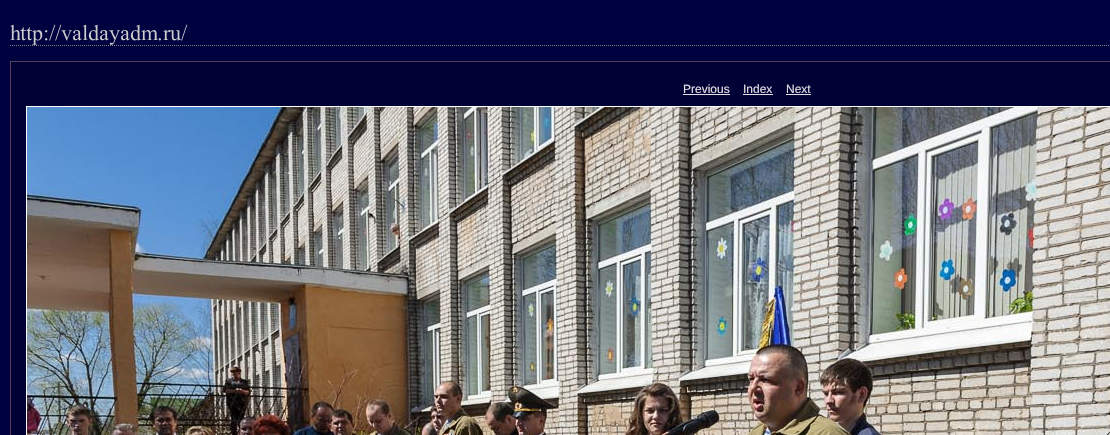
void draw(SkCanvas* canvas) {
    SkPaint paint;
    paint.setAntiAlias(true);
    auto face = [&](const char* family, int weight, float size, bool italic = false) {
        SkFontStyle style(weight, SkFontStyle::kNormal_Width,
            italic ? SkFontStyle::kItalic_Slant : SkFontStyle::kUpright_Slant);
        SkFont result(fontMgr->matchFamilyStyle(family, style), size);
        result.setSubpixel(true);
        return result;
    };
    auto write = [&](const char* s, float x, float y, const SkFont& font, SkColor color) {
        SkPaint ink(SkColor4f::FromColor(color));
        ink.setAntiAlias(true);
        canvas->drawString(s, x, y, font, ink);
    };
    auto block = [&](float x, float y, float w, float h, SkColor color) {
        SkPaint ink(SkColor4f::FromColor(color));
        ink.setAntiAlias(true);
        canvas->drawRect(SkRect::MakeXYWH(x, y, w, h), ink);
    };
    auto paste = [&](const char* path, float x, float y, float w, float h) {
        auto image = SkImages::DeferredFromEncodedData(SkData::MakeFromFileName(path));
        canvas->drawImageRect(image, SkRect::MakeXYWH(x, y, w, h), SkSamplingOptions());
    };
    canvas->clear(SkColorSetRGB(0, 1, 63));
    paste("pic1.png", 10, 24, 178, 21);
    paint.setStyle(SkPaint::kStroke_Style);
    paint.setStrokeWidth(1);
    paint.setColor(SkColorSetRGB(127, 127, 127));
    paint.setPathEffect(SkDashPathEffect::Make({{1, 1}}, 0));
    canvas->drawPath(SkPathBuilder().moveTo(10, 45.5f).lineTo(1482, 45.5f).detach(), paint);
    paint.setPathEffect(nullptr);
    paint.setStyle(SkPaint::kFill_Style);
    paint.setColor(SkColorSetRGB(0, 1, 52));
    canvas->drawRect(SkRect::MakeXYWH(10.5f, 61.5f, 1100, 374), paint);
    paint.setStyle(SkPaint::kStroke_Style);
    paint.setColor(SkColorSetRGB(85, 62, 92));
    canvas->drawRect(SkRect::MakeXYWH(10.5f, 61.5f, 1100, 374), paint);
    auto kFont1 = face("Liberation Sans", 400, 12);
    write("Previous", 683, 93, kFont1, SkColorSetRGB(226, 221, 227));
    block(683, 94, 47, 1, SkColorSetRGB(226, 221, 227));
    write("Index", 743, 93, kFont1, SkColorSetRGB(226, 221, 227));
    block(743, 94, 30, 1, SkColorSetRGB(226, 221, 227));
    write("Next", 786, 93, kFont1, SkColorSetRGB(226, 221, 227));
    block(786, 94, 25, 1, SkColorSetRGB(226, 221, 227));
    paint.setColor(SK_ColorWHITE);
    canvas->drawRect(SkRect::MakeXYWH(26.5f, 106.5f, 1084, 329), paint);
    paste("pic2.png", 27, 107, 1083, 328);
}
